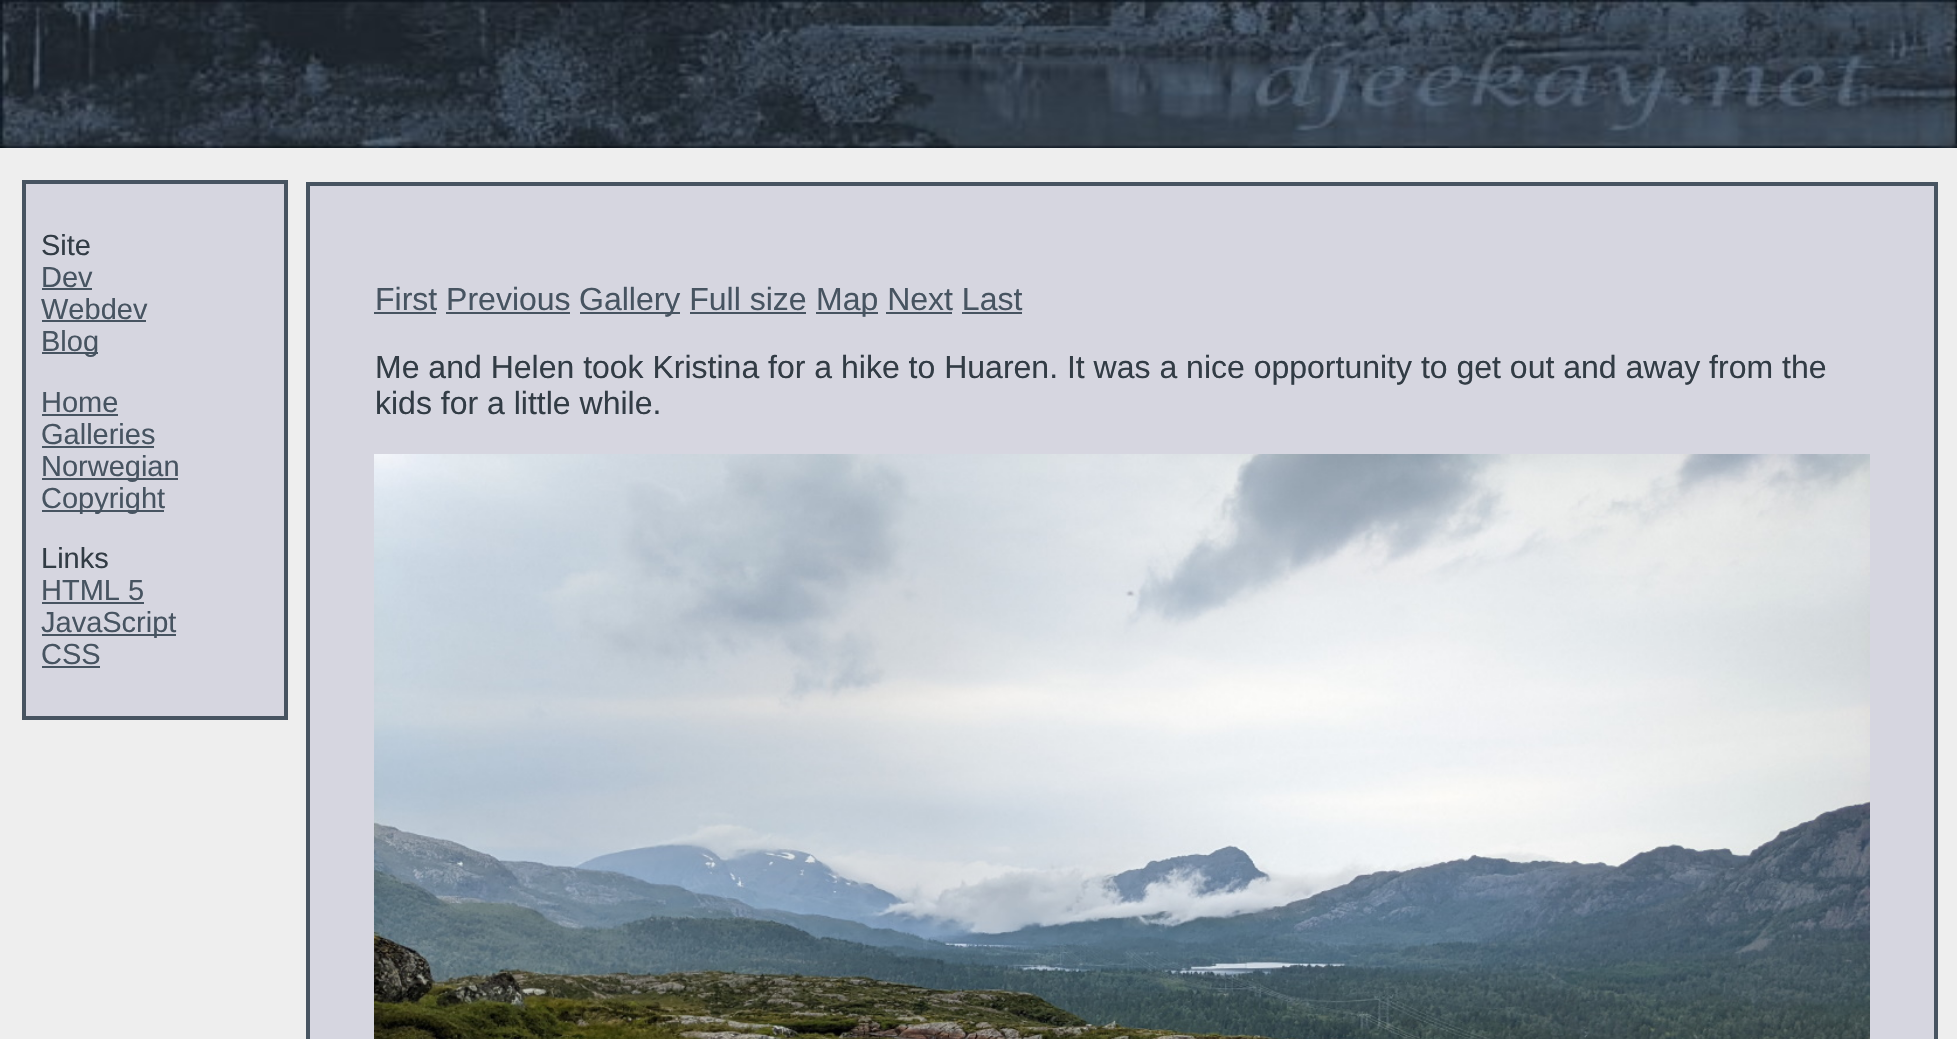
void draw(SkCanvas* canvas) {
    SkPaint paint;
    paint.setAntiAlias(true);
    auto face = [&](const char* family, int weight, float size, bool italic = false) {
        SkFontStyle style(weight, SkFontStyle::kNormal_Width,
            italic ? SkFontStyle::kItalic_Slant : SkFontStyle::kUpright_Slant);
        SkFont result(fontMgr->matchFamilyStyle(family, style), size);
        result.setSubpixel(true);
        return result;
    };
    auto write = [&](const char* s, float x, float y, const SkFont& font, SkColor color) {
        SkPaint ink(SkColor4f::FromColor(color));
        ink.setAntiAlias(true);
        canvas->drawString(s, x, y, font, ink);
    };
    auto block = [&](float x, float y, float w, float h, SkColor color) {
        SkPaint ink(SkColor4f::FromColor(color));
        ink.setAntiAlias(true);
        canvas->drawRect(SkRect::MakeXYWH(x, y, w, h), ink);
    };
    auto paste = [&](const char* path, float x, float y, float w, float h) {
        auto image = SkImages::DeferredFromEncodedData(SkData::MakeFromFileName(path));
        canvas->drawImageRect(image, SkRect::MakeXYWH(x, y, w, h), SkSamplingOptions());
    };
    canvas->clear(SkColorSetRGB(238, 238, 238));
    paste("pic1.png", 0, 0, 1957, 148);
    paint.setColor(SkColorSetRGB(214, 214, 224));
    canvas->drawRect(SkRect::MakeXYWH(24, 182, 262, 536), paint);
    paint.setStyle(SkPaint::kStroke_Style);
    paint.setStrokeWidth(4);
    paint.setColor(SkColorSetRGB(71, 84, 97));
    canvas->drawRect(SkRect::MakeXYWH(24, 182, 262, 536), paint);
    auto kFont1 = face("Liberation Sans", 400, 29);
    write("Site", 41, 255, kFont1, SkColorSetRGB(50, 60, 69));
    write("Dev", 41, 287, kFont1, SkColorSetRGB(71, 84, 97));
    block(42, 288, 50, 2, SkColorSetRGB(71, 84, 97));
    write("Webdev", 41, 319, kFont1, SkColorSetRGB(71, 84, 97));
    block(42, 320, 104, 2, SkColorSetRGB(71, 84, 97));
    block(42, 352, 56, 2, SkColorSetRGB(71, 84, 97));
    write("Blog", 41, 351, kFont1, SkColorSetRGB(71, 84, 97));
    write("Home", 41, 412, kFont1, SkColorSetRGB(71, 84, 97));
    block(42, 414, 76, 2, SkColorSetRGB(71, 84, 97));
    write("Galleries", 41, 444, kFont1, SkColorSetRGB(71, 84, 97));
    block(42, 446, 112, 2, SkColorSetRGB(71, 84, 97));
    block(42, 478, 136, 2, SkColorSetRGB(71, 84, 97));
    write("Norwegian", 41, 476, kFont1, SkColorSetRGB(71, 84, 97));
    block(42, 510, 122, 2, SkColorSetRGB(71, 84, 97));
    write("Copyright", 41, 508, kFont1, SkColorSetRGB(71, 84, 97));
    write("Links", 41, 568, kFont1, SkColorSetRGB(50, 60, 69));
    write("HTML 5", 41, 600, kFont1, SkColorSetRGB(71, 84, 97));
    block(42, 602, 102, 2, SkColorSetRGB(71, 84, 97));
    block(42, 634, 134, 2, SkColorSetRGB(71, 84, 97));
    write("JavaScript", 41, 632, kFont1, SkColorSetRGB(71, 84, 97));
    write("CSS", 41, 664, kFont1, SkColorSetRGB(71, 84, 97));
    block(42, 666, 58, 2, SkColorSetRGB(71, 84, 97));
    paint.setStyle(SkPaint::kFill_Style);
    paint.setColor(SkColorSetRGB(214, 214, 224));
    canvas->drawRect(SkRect::MakeXYWH(308, 184, 1628, 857), paint);
    paint.setStyle(SkPaint::kStroke_Style);
    paint.setColor(SkColorSetRGB(71, 84, 97));
    canvas->drawRect(SkRect::MakeXYWH(308, 184, 1628, 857), paint);
    auto kFont2 = face("Liberation Sans", 400, 32);
    write("First Previous", 375, 310, kFont2, SkColorSetRGB(71, 84, 97));
    block(374, 312, 62, 2, SkColorSetRGB(71, 84, 97));
    block(580, 312, 100, 2, SkColorSetRGB(71, 84, 97));
    write("Gallery Full size", 579, 310, kFont2, SkColorSetRGB(71, 84, 97));
    block(816, 312, 62, 2, SkColorSetRGB(71, 84, 97));
    write("Map Next Last", 816, 310, kFont2, SkColorSetRGB(71, 84, 97));
    block(446, 312, 124, 2, SkColorSetRGB(71, 84, 97));
    block(690, 312, 116, 2, SkColorSetRGB(71, 84, 97));
    block(886, 312, 66, 2, SkColorSetRGB(71, 84, 97));
    block(962, 312, 60, 2, SkColorSetRGB(71, 84, 97));
    write("Me and Helen took Kristina for a hike to Huaren. It was a nice opportunity to get out and away from the", 375, 378, kFont2, SkColorSetRGB(50, 60, 69));
    write("kids for a little while.", 375, 414, kFont2, SkColorSetRGB(50, 60, 69));
    paste("pic2.png", 374, 454, 1496, 585);
}
